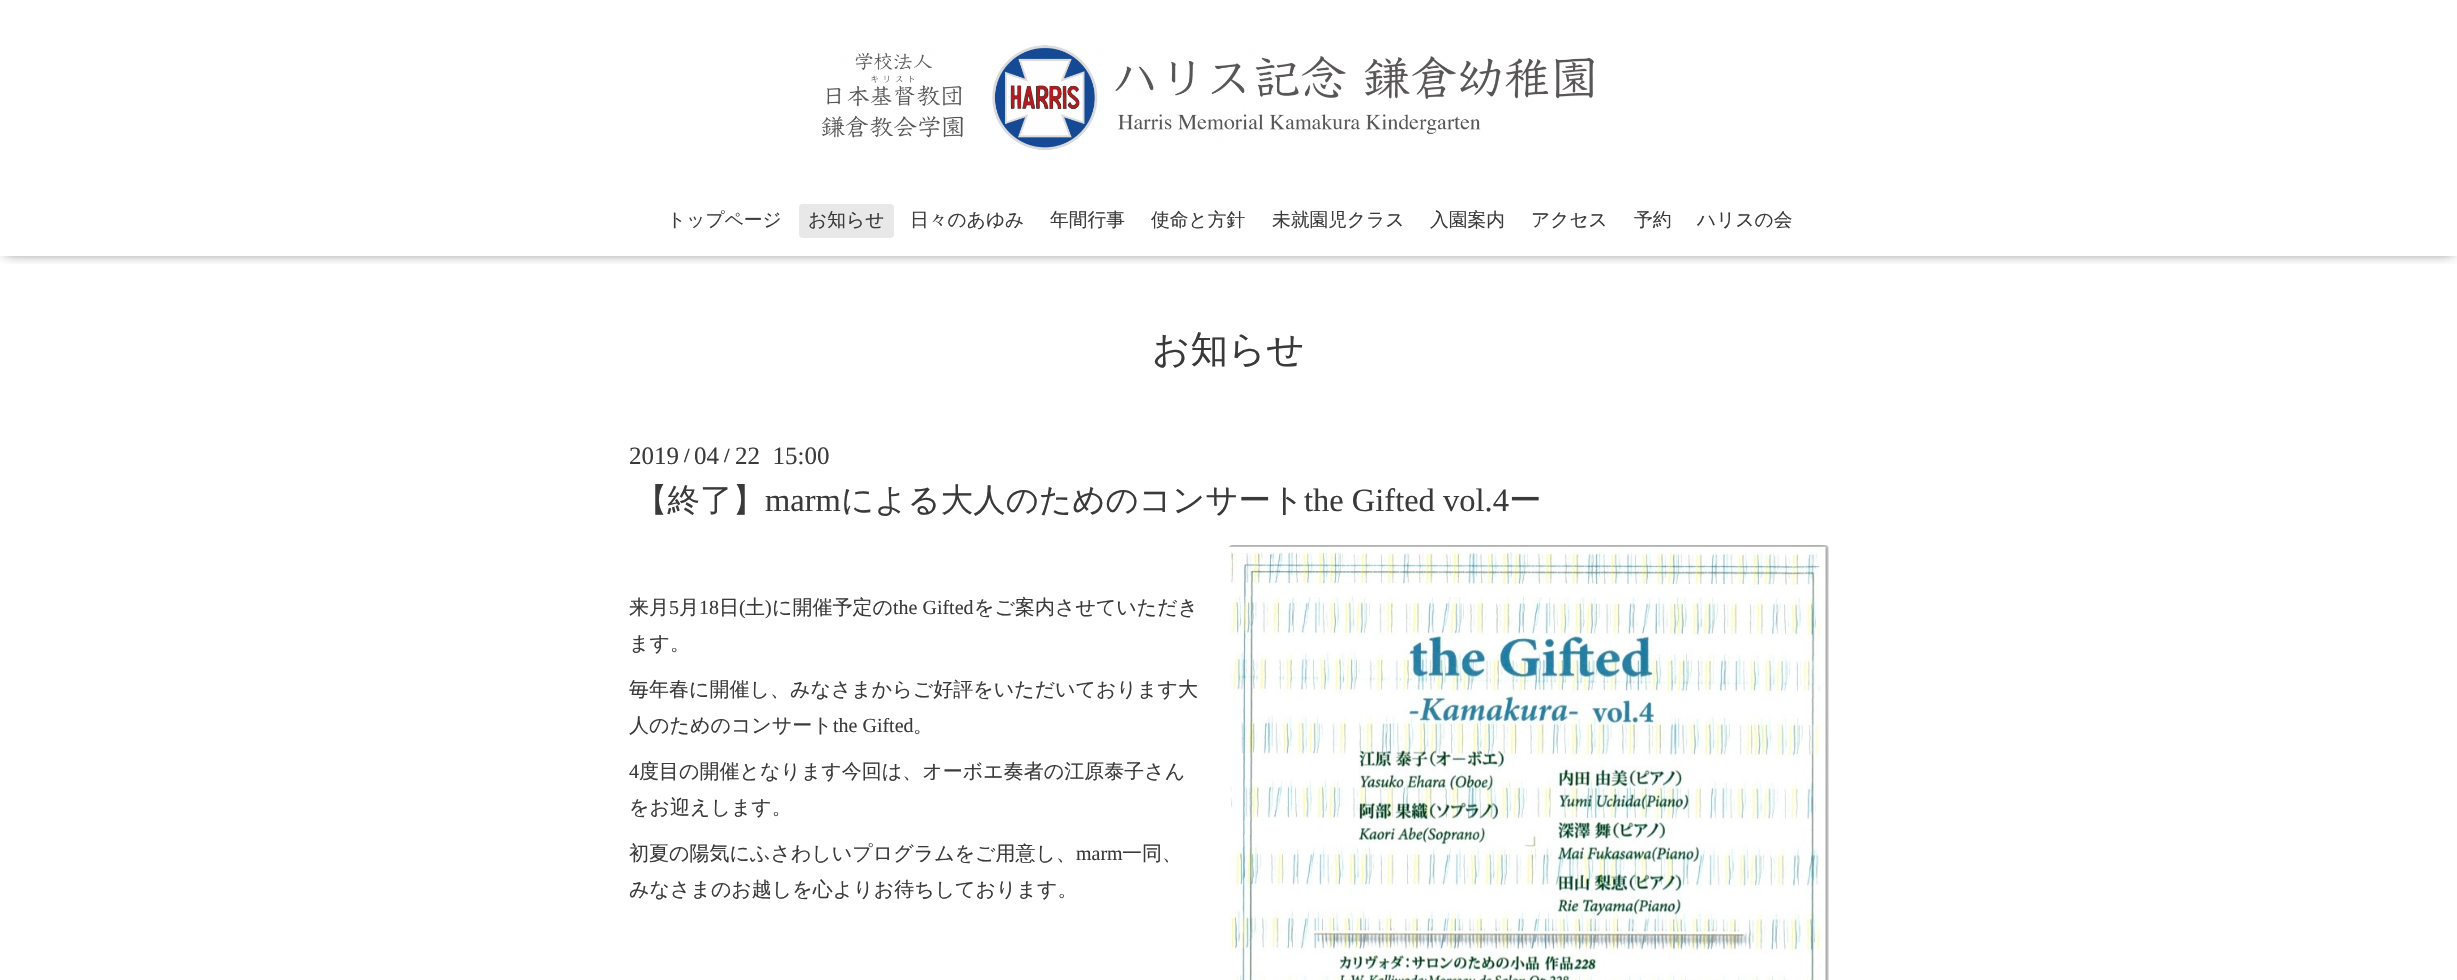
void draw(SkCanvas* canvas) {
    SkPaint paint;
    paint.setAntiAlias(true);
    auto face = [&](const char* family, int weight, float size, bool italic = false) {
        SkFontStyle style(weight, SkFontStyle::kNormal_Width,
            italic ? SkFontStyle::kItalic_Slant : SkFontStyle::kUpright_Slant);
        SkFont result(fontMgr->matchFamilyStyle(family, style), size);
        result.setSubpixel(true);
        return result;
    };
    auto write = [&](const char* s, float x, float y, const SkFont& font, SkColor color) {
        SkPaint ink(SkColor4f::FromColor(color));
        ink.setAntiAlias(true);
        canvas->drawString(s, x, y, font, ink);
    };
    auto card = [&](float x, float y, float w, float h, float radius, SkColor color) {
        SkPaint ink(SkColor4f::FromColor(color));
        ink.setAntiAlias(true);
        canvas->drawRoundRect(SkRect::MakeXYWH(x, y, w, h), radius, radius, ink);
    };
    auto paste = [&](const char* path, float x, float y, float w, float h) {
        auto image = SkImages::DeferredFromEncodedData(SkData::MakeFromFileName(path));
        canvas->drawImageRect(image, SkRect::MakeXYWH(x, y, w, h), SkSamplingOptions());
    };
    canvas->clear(SK_ColorWHITE);
    canvas->save();
    canvas->clipRect(SkRect::MakeXYWH(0, 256, 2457, 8));
    paint.setColor(SkColorSetARGB(153, 0, 0, 0));
    paint.setMaskFilter(SkMaskFilter::MakeBlur(kNormal_SkBlurStyle, 6));
    canvas->drawRect(SkRect::MakeXYWH(5, 6, 2448, 247), paint);
    paint.setMaskFilter(nullptr);
    canvas->restore();
    paste("pic1.png", 822, 45, 772, 105);
    auto kFont1 = face("WenQuanYi Zen Hei", 500, 18.75f);
    write("トップページ", 667, 226, kFont1, SkColorSetRGB(58, 58, 58));
    card(799, 204, 95, 34, 4, SkColorSetRGB(232, 232, 232));
    write("お知らせ", 808, 226, kFont1, SkColorSetRGB(58, 58, 58));
    write("日々のあゆみ", 910, 226, kFont1, SkColorSetRGB(58, 58, 58));
    write("年間行事", 1050, 226, kFont1, SkColorSetRGB(58, 58, 58));
    write("使命と方針", 1151, 226, kFont1, SkColorSetRGB(58, 58, 58));
    write("未就園児クラス", 1272, 226, kFont1, SkColorSetRGB(58, 58, 58));
    write("入園案内", 1430, 226, kFont1, SkColorSetRGB(58, 58, 58));
    write("アクセス", 1531, 226, kFont1, SkColorSetRGB(58, 58, 58));
    write("予約", 1634, 226, kFont1, SkColorSetRGB(58, 58, 58));
    write("ハリスの会", 1697, 226, kFont1, SkColorSetRGB(58, 58, 58));
    auto kFont2 = face("WenQuanYi Zen Hei", 500, 37.5f);
    write("お知らせ", 1152, 362, kFont2, SkColorSetRGB(58, 58, 58));
    auto kFont3 = face("Liberation Serif", 400, 25);
    write("2019", 629, 464, kFont3, SkColorSetRGB(58, 58, 58));
    auto kFont4 = face("Liberation Serif", 700, 20);
    write("/", 684, 462, kFont4, SkColorSetRGB(58, 58, 58));
    write("04", 694, 464, kFont3, SkColorSetRGB(58, 58, 58));
    write("/", 724, 462, kFont4, SkColorSetRGB(58, 58, 58));
    write("22  15:00", 735, 464, kFont3, SkColorSetRGB(58, 58, 58));
    auto kFont5 = face("WenQuanYi Zen Hei", 500, 32.5f);
    write("【終了】", 635, 511, kFont5, SkColorSetRGB(58, 58, 58));
    auto kFont6 = face("Liberation Serif", 400, 32.5f);
    write("marm", 765, 511, kFont6, SkColorSetRGB(58, 58, 58));
    write("による大人のためのコンサート", 841, 511, kFont5, SkColorSetRGB(58, 58, 58));
    write("the Gifted vol.4", 1304, 511, kFont6, SkColorSetRGB(58, 58, 58));
    write("ー", 1509, 511, kFont5, SkColorSetRGB(58, 58, 58));
    auto kFont7 = face("WenQuanYi Zen Hei", 500, 20);
    write("来月", 629, 614, kFont7, SkColorSetRGB(58, 58, 58));
    auto kFont8 = face("Liberation Serif", 400, 20);
    write("5", 669, 614, kFont8, SkColorSetRGB(58, 58, 58));
    write("月", 679, 614, kFont7, SkColorSetRGB(58, 58, 58));
    write("18", 699, 614, kFont8, SkColorSetRGB(58, 58, 58));
    write("日", 719, 614, kFont7, SkColorSetRGB(58, 58, 58));
    write("(", 739, 614, kFont8, SkColorSetRGB(58, 58, 58));
    write("土", 745, 614, kFont7, SkColorSetRGB(58, 58, 58));
    write(")", 765, 614, kFont8, SkColorSetRGB(58, 58, 58));
    write("に開催予定の", 772, 614, kFont7, SkColorSetRGB(58, 58, 58));
    write("the Gifted", 893, 614, kFont8, SkColorSetRGB(58, 58, 58));
    write("をご案内させていただき", 974, 614, kFont7, SkColorSetRGB(58, 58, 58));
    write("ます。", 629, 650, kFont7, SkColorSetRGB(58, 58, 58));
    write("毎年春に開催し、みなさまからご好評をいただいております大", 629, 696, kFont7, SkColorSetRGB(58, 58, 58));
    write("人のためのコンサート", 629, 732, kFont7, SkColorSetRGB(58, 58, 58));
    write("the Gifted", 833, 732, kFont8, SkColorSetRGB(58, 58, 58));
    write("。", 913, 732, kFont7, SkColorSetRGB(58, 58, 58));
    write("4", 629, 778, kFont8, SkColorSetRGB(58, 58, 58));
    write("度目の開催となります今回は、オーボエ奏者の江原泰子さん", 639, 778, kFont7, SkColorSetRGB(58, 58, 58));
    write("をお迎えします。", 629, 814, kFont7, SkColorSetRGB(58, 58, 58));
    write("初夏の陽気にふさわしいプログラムをご用意し、", 629, 860, kFont7, SkColorSetRGB(58, 58, 58));
    write("marm", 1076, 860, kFont8, SkColorSetRGB(58, 58, 58));
    write("一同、", 1122, 860, kFont7, SkColorSetRGB(58, 58, 58));
    write("みなさまのお越しを心よりお待ちしております。", 629, 896, kFont7, SkColorSetRGB(58, 58, 58));
    paste("pic2.png", 1229, 545, 600, 435);
}
